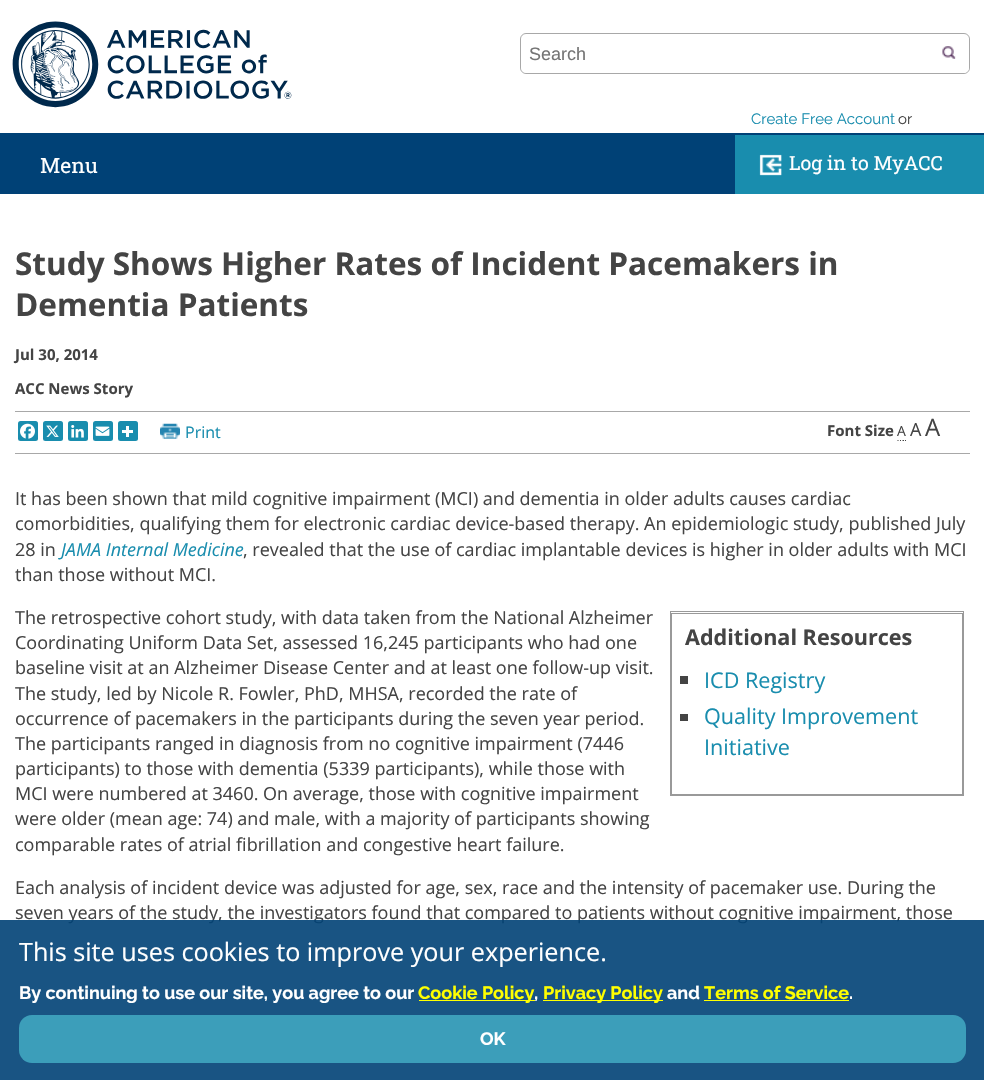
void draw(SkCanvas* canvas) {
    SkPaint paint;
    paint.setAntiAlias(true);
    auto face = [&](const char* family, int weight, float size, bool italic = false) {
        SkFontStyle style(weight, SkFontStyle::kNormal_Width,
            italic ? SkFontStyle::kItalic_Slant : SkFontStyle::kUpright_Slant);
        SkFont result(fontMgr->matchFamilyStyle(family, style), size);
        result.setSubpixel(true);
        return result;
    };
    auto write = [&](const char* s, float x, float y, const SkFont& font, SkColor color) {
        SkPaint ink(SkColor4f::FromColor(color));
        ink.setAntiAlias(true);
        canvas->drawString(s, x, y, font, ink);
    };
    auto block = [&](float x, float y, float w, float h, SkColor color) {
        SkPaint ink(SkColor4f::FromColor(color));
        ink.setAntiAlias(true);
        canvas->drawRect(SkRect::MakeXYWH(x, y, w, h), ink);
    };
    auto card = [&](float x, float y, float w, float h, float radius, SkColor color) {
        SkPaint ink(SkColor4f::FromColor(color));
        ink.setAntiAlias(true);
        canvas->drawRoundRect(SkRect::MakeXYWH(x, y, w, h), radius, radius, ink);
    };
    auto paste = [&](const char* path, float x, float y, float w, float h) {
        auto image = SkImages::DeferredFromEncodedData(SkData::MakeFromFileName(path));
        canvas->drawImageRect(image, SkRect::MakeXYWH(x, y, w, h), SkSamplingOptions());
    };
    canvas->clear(SK_ColorWHITE);
    paste("pic1.png", 12, 21, 280, 87);
    paint.setStyle(SkPaint::kStroke_Style);
    paint.setStrokeWidth(1);
    paint.setColor(SkColorSetRGB(168, 168, 168));
    canvas->drawRoundRect(SkRect::MakeXYWH(520.5f, 33.5f, 449, 40), 5.5f, 5.5f, paint);
    card(521, 35, 448, 38, 6, SK_ColorWHITE);
    auto kFont1 = face("Liberation Sans", 400, 18);
    write("Search", 529, 60, kFont1, SkColorSetRGB(117, 117, 117));
    paint.setStyle(SkPaint::kFill_Style);
    paint.setColor(SK_ColorWHITE);
    canvas->drawPath(SkPathBuilder().moveTo(929, 35).lineTo(963, 35).cubicTo(966.5f, 35, 969, 37.5f, 969, 41).lineTo(969, 67).cubicTo(969, 70.5f, 966.5f, 73, 963, 73).lineTo(929, 73).close().detach(), paint);
    paste("pic2.png", 942, 46, 14, 13);
    block(0, 133, 984, 61, SkColorSetRGB(0, 65, 118));
    auto kFont2 = face("Roboto Slab", 400, 21);
    write("Menu", 40, 173, kFont2, SK_ColorWHITE);
    block(735, 135, 249, 59, SkColorSetRGB(25, 141, 174));
    auto kFont3 = face("Raleway", 400, 15);
    write("Create Free Account", 751, 124, kFont3, SkColorSetRGB(25, 141, 174));
    write("or", 898, 124, kFont3, SkColorSetRGB(68, 68, 68));
    paste("pic3.png", 759, 154, 23, 22);
    auto kFont4 = face("Roboto Slab", 400, 19.5f);
    write("Log in to MyACC", 789, 170, kFont4, SK_ColorWHITE);
    auto kFont5 = face("Open Sans", 700, 31.5f);
    write("Study Shows Higher Rates of Incident Pacemakers in", 15, 275, kFont5, SkColorSetRGB(68, 68, 68));
    write("Dementia Patients", 15, 316, kFont5, SkColorSetRGB(68, 68, 68));
    auto kFont6 = face("Open Sans", 700, 15);
    write("Jul 30, 2014", 15, 360, kFont6, SkColorSetRGB(68, 68, 68));
    write("ACC News Story", 15, 394, kFont6, SkColorSetRGB(68, 68, 68));
    block(15, 411, 955, 1, SkColorSetRGB(168, 168, 168));
    block(15, 453, 955, 1, SkColorSetRGB(168, 168, 168));
    card(18, 421, 20, 20, 2.5f, SkColorSetRGB(25, 141, 174));
    paste("pic4.png", 20, 423, 15, 16);
    card(43, 421, 20, 20, 2.5f, SkColorSetRGB(25, 141, 174));
    paste("pic5.png", 46, 425, 13, 12);
    card(68, 421, 20, 20, 2.5f, SkColorSetRGB(25, 141, 174));
    paste("pic6.png", 71, 425, 13, 13);
    card(93, 421, 20, 20, 2.5f, SkColorSetRGB(25, 141, 174));
    paste("pic7.png", 95, 426, 15, 10);
    card(118, 421, 20, 20, 2.5f, SkColorSetRGB(25, 141, 174));
    block(126, 426, 3, 11, SK_ColorWHITE);
    block(122, 430, 11, 3, SK_ColorWHITE);
    paste("pic8.png", 160, 423, 20, 16);
    auto kFont7 = face("Open Sans", 400, 16);
    write("Print", 185, 438, kFont7, SkColorSetRGB(25, 141, 174));
    write("Font Size", 827, 436, kFont6, SkColorSetRGB(68, 68, 68));
    auto kFont8 = face("Open Sans", 400, 14);
    write("A", 897, 436, kFont8, SkColorSetRGB(68, 68, 68));
    paint.setStyle(SkPaint::kStroke_Style);
    paint.setStrokeWidth(1.2f);
    paint.setColor(SkColorSetRGB(68, 68, 68));
    canvas->drawPath(SkPathBuilder().moveTo(897.5f, 440.5f).lineTo(898.5f, 440.5f).moveTo(900, 440.5f).lineTo(901, 440.5f).moveTo(902.5f, 440.5f).lineTo(904, 440.5f).moveTo(905, 440.5f).lineTo(906, 440.5f).detach(), paint);
    auto kFont9 = face("Open Sans", 400, 18);
    write("A", 910, 436, kFont9, SkColorSetRGB(68, 68, 68));
    auto kFont10 = face("Open Sans", 400, 24);
    write("A", 925, 436, kFont10, SkColorSetRGB(68, 68, 68));
    write("It has been shown that mild cognitive impairment (MCI) and dementia in older adults causes cardiac", 15, 505, kFont9, SkColorSetRGB(68, 68, 68));
    write("comorbidities, qualifying them for electronic cardiac device-based therapy. An epidemiologic study, published July", 15, 530, kFont9, SkColorSetRGB(68, 68, 68));
    write("28 in", 15, 556, kFont9, SkColorSetRGB(68, 68, 68));
    auto kFont11 = face("Open Sans", 400, 18, true);
    write("JAMA Internal Medicine", 61, 556, kFont11, SkColorSetRGB(25, 141, 174));
    write(", revealed that the use of cardiac implantable devices is higher in older adults with MCI", 243, 556, kFont9, SkColorSetRGB(68, 68, 68));
    write("than those without MCI.", 15, 581, kFont9, SkColorSetRGB(68, 68, 68));
    write("The retrospective cohort study, with data taken from the National Alzheimer", 15, 624, kFont9, SkColorSetRGB(68, 68, 68));
    write("Coordinating Uniform Data Set, assessed 16,245 participants who had one", 15, 649, kFont9, SkColorSetRGB(68, 68, 68));
    write("baseline visit at an Alzheimer Disease Center and at least one follow-up visit.", 15, 674, kFont9, SkColorSetRGB(68, 68, 68));
    write("The study, led by Nicole R. Fowler, PhD, MHSA, recorded the rate of", 15, 700, kFont9, SkColorSetRGB(68, 68, 68));
    write("occurrence of pacemakers in the participants during the seven year period.", 15, 725, kFont9, SkColorSetRGB(68, 68, 68));
    write("The participants ranged in diagnosis from no cognitive impairment (7446", 15, 750, kFont9, SkColorSetRGB(68, 68, 68));
    write("participants) to those with dementia (5339 participants), while those with", 15, 775, kFont9, SkColorSetRGB(68, 68, 68));
    write("MCI were numbered at 3460. On average, those with cognitive impairment", 15, 800, kFont9, SkColorSetRGB(68, 68, 68));
    write("were older (mean age: 74) and male, with a majority of participants showing", 15, 825, kFont9, SkColorSetRGB(68, 68, 68));
    write("comparable rates of atrial fibrillation and congestive heart failure.", 15, 851, kFont9, SkColorSetRGB(68, 68, 68));
    paint.setStrokeWidth(1);
    paint.setColor(SkColorSetRGB(153, 153, 153));
    canvas->drawRect(SkRect::MakeXYWH(670.5f, 611.5f, 293, 184), paint);
    canvas->drawRect(SkRect::MakeXYWH(671.5f, 613.5f, 291, 181), paint);
    auto kFont12 = face("Open Sans", 700, 21.6f);
    write("Additional Resources", 685, 645, kFont12, SkColorSetRGB(68, 68, 68));
    block(680, 676, 8, 8, SkColorSetRGB(68, 68, 68));
    auto kFont13 = face("Open Sans", 400, 21.6f);
    write("ICD Registry", 704, 688, kFont13, SkColorSetRGB(25, 141, 174));
    block(680, 714, 8, 7, SkColorSetRGB(68, 68, 68));
    write("Quality Improvement", 704, 724, kFont13, SkColorSetRGB(25, 141, 174));
    write("Initiative", 704, 755, kFont13, SkColorSetRGB(25, 141, 174));
    write("Each analysis of incident device was adjusted for age, sex, race and the intensity of pacemaker use. During the", 15, 894, kFont9, SkColorSetRGB(68, 68, 68));
    write("seven years of the study, the investigators found that compared to patients without cognitive impairment, those", 15, 919, kFont9, SkColorSetRGB(68, 68, 68));
    block(0, 920, 984, 160, SkColorSetARGB(230, 0, 65, 118));
    auto kFont14 = face("Open Sans", 400, 25.2f);
    write("This site uses cookies to improve your experience.", 19, 961, kFont14, SK_ColorWHITE);
    auto kFont15 = face("Raleway", 700, 18);
    write("By continuing to use our site, you agree to our", 19, 999, kFont15, SK_ColorWHITE);
    block(419, 1000, 116, 1, SkColorSetRGB(255, 255, 0));
    write("Cookie Policy", 418, 999, kFont15, SkColorSetRGB(255, 255, 0));
    write(",", 534, 999, kFont15, SK_ColorWHITE);
    block(543, 1000, 120, 1, SkColorSetRGB(255, 255, 0));
    write("Privacy Policy", 543, 999, kFont15, SkColorSetRGB(255, 255, 0));
    write("and", 667, 999, kFont15, SK_ColorWHITE);
    write("Terms of Service", 704, 999, kFont15, SkColorSetRGB(255, 255, 0));
    block(704, 1000, 145, 1, SkColorSetRGB(255, 255, 0));
    write(".", 849, 999, kFont15, SK_ColorWHITE);
    card(19, 1015, 947, 48, 13, SkColorSetRGB(60, 158, 186));
    write("OK", 480, 1045, kFont15, SK_ColorWHITE);
}
